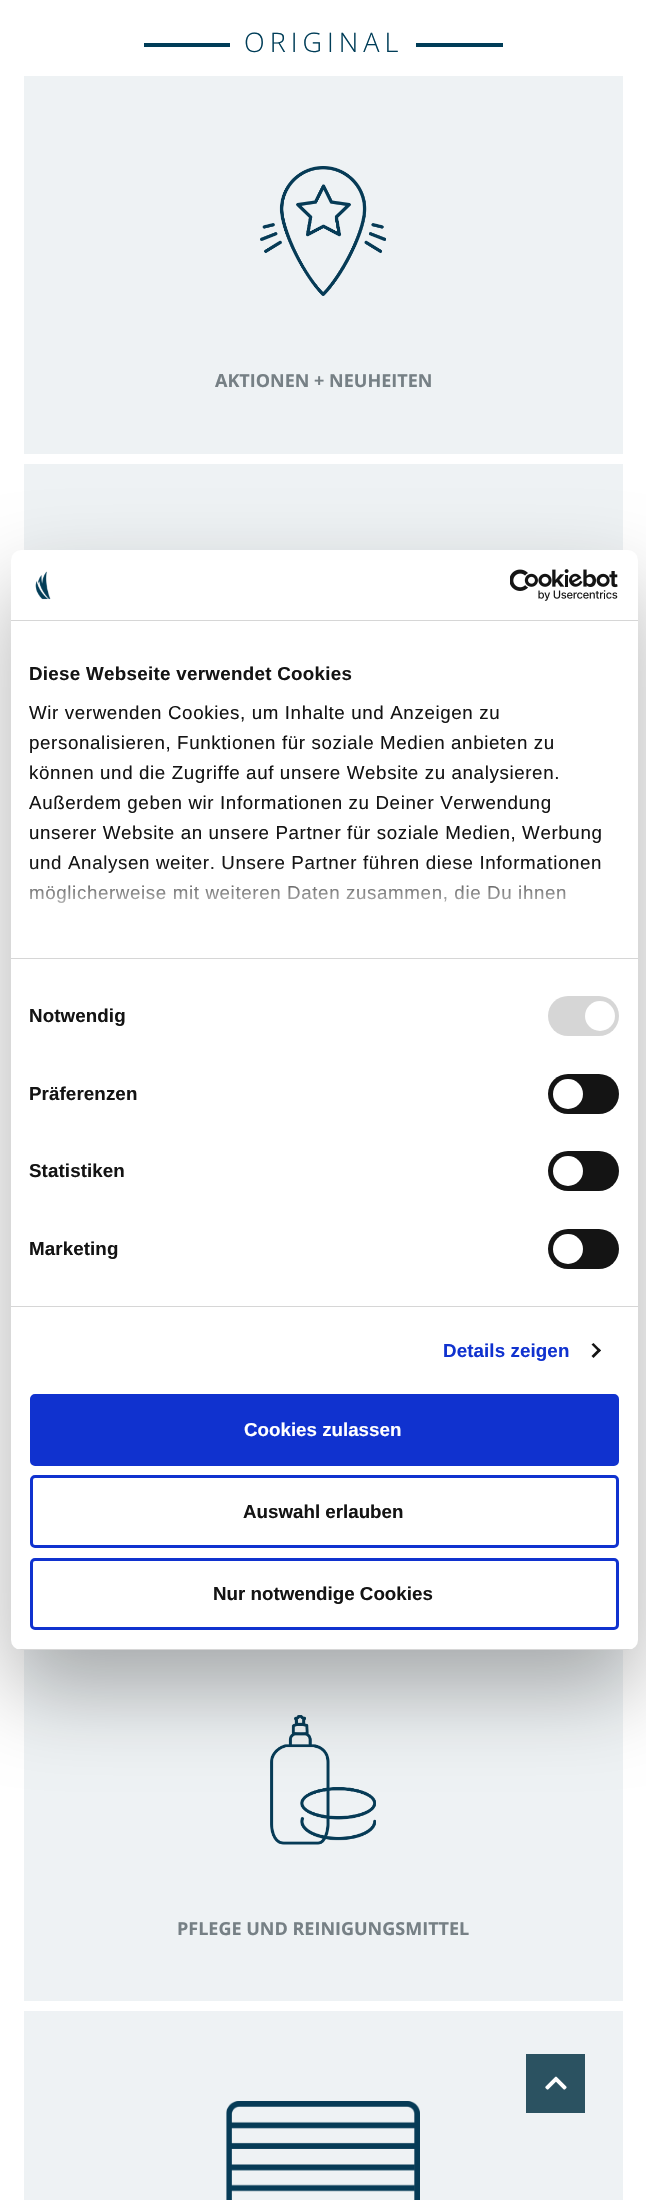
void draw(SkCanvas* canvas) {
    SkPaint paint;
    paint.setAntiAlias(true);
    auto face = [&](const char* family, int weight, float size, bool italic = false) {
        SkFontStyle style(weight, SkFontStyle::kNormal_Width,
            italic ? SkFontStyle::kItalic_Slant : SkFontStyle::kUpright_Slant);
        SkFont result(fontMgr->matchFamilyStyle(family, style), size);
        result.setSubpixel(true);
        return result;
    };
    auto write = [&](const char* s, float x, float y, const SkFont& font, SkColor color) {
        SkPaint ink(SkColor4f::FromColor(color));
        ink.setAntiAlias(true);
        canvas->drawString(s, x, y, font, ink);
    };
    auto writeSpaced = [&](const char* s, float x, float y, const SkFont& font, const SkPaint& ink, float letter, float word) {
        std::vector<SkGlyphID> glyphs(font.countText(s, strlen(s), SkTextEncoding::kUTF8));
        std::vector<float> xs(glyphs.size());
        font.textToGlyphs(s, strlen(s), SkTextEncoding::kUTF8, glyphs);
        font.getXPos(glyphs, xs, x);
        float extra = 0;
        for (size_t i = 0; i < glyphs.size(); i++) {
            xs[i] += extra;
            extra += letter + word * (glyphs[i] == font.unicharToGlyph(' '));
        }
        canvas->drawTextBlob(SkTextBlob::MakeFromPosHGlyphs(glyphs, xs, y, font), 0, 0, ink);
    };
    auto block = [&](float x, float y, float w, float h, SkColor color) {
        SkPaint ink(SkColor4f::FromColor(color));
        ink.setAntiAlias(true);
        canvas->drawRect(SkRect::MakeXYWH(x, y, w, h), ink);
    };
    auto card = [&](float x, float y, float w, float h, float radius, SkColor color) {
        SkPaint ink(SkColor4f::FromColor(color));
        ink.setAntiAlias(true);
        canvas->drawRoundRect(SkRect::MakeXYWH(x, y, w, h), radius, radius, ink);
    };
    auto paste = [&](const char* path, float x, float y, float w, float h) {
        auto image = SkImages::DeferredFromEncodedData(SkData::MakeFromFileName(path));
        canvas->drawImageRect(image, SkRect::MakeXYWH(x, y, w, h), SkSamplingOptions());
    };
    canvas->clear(SK_ColorWHITE);
    block(144, 43, 86, 4, SkColorSetRGB(0, 61, 88));
    auto kFont1 = face("Open Sans", 300, 27);
    paint.setColor(SkColorSetRGB(0, 61, 88));
    writeSpaced("ORIGINAL", 244, 52, kFont1, paint, 5, 0);
    block(416, 43, 87, 4, SkColorSetRGB(0, 61, 88));
    block(24, 76, 599, 378, SkColorSetRGB(238, 242, 244));
    paste("pic1.png", 260, 166, 126, 130);
    auto kFont2 = face("Open Sans", 700, 18);
    write("AKTIONEN + NEUHEITEN", 215, 387, kFont2, SkColorSetRGB(118, 128, 133));
    block(24, 464, 599, 86, SkColorSetRGB(238, 242, 244));
    block(24, 1650, 599, 351, SkColorSetRGB(238, 242, 244));
    paste("pic2.png", 270, 1715, 106, 130);
    write("PFLEGE UND REINIGUNGSMITTEL", 177, 1935, kFont2, SkColorSetRGB(118, 128, 133));
    block(24, 2011, 599, 189, SkColorSetRGB(238, 242, 244));
    paste("pic3.png", 226, 2101, 194, 99);
    block(526, 2054, 59, 59, SkColorSetRGB(43, 82, 97));
    paste("pic4.png", 545, 2076, 22, 14);
    paint.setColor(SkColorSetARGB(77, 0, 0, 0));
    paint.setMaskFilter(SkMaskFilter::MakeBlur(kNormal_SkBlurStyle, 42.5f));
    canvas->drawRoundRect(SkRect::MakeXYWH(11, 590, 627, 1100), 10, 10, paint);
    paint.setMaskFilter(nullptr);
    card(11, 550, 627, 1100, 10, SK_ColorWHITE);
    block(11, 620, 627, 1, SkColorSetRGB(214, 214, 214));
    paste("pic5.png", 35, 571, 16, 29);
    paste("pic6.png", 510, 569, 108, 32);
    block(11, 958, 627, 1, SkColorSetRGB(214, 214, 214));
    auto kFont3 = face("Liberation Sans", 700, 18.75f);
    paint.setColor(SkColorSetRGB(20, 20, 20));
    writeSpaced("Diese Webseite verwendet Cookies", 29, 680, kFont3, paint, 0.3f, 0);
    auto kFont4 = face("Liberation Sans", 400, 18.75f);
    writeSpaced("Wir verwenden Cookies, um Inhalte und Anzeigen zu", 29, 719, kFont4, paint, 0.62f, 0);
    writeSpaced("personalisieren, Funktionen für soziale Medien anbieten zu", 29, 749, kFont4, paint, 0.62f, 0);
    writeSpaced("können und die Zugriffe auf unsere Website zu analysieren.", 29, 779, kFont4, paint, 0.62f, 0);
    writeSpaced("Außerdem geben wir Informationen zu Deiner Verwendung", 29, 809, kFont4, paint, 0.62f, 0);
    writeSpaced("unserer Website an unsere Partner für soziale Medien, Werbung", 29, 839, kFont4, paint, 0.62f, 0);
    writeSpaced("und Analysen weiter. Unsere Partner führen diese Informationen", 29, 869, kFont4, paint, 0.62f, 0);
    writeSpaced("möglicherweise mit weiteren Daten zusammen, die Du ihnen", 29, 899, kFont4, paint, 0.62f, 0);
    {
        const SkColor colors[] = {SK_ColorWHITE, SkColorSetARGB(204, 255, 255, 255), SkColorSetARGB(0, 255, 255, 255)};
        const float stops[] = {0, 0.5f, 1};
        const SkPoint ends[] = {{316, 958}, {316, 864}};
        paint.setShader(SkGradientShader::MakeLinear(ends, colors, stops, 3, SkTileMode::kClamp));
        paint.setAlpha(255);
    }
    canvas->drawRect(SkRect::MakeXYWH(30, 865, 571, 38), paint);
    block(11, 1306, 627, 1, SkColorSetRGB(214, 214, 214));
    paint.setShader(nullptr);
    paint.setColor(SkColorSetRGB(20, 20, 20));
    writeSpaced("Notwendig", 29, 1022, kFont3, paint, 0.1f, 0);
    card(548, 996, 71, 40, 20, SkColorSetRGB(214, 214, 214));
    paint.setColor(SK_ColorWHITE);
    canvas->drawCircle(600, 1016, 15, paint);
    paint.setColor(SkColorSetRGB(20, 20, 20));
    writeSpaced("Präferenzen", 29, 1100, kFont3, paint, 0.1f, 0);
    card(548, 1074, 71, 40, 20, SkColorSetRGB(20, 20, 20));
    paint.setColor(SK_ColorWHITE);
    canvas->drawCircle(568, 1094, 15, paint);
    paint.setColor(SkColorSetRGB(20, 20, 20));
    writeSpaced("Statistiken", 29, 1177, kFont3, paint, 0.1f, 0);
    card(548, 1151, 71, 40, 20, SkColorSetRGB(20, 20, 20));
    paint.setColor(SK_ColorWHITE);
    canvas->drawCircle(568, 1171, 15, paint);
    paint.setColor(SkColorSetRGB(20, 20, 20));
    writeSpaced("Marketing", 29, 1255, kFont3, paint, 0.1f, 0);
    card(548, 1229, 71, 40, 20, SkColorSetRGB(20, 20, 20));
    paint.setColor(SK_ColorWHITE);
    canvas->drawCircle(568, 1249, 15, paint);
    paint.setColor(SkColorSetRGB(16, 50, 207));
    writeSpaced("Details zeigen", 443, 1357, kFont3, paint, 0.1f, 0);
    paint.setColor(SkColorSetRGB(20, 20, 20));
    canvas->drawPath(SkPathBuilder().moveTo(593.5f, 1343).lineTo(601, 1350.5f).lineTo(599, 1352).lineTo(591.5f, 1344.5f).close().detach(), paint);
    canvas->drawPath(SkPathBuilder().moveTo(599, 1348.5f).lineTo(601, 1350.5f).lineTo(593.5f, 1358).lineTo(591.5f, 1356).close().detach(), paint);
    canvas->save();
    canvas->clipPath(SkPathBuilder().moveTo(21, 550).lineTo(628, 550).cubicTo(633.5f, 550, 638, 554.5f, 638, 560).lineTo(638, 1640).cubicTo(638, 1645.5f, 633.5f, 1650, 628, 1650).lineTo(21, 1650).cubicTo(15.5f, 1650, 11, 1645.5f, 11, 1640).lineTo(11, 560).cubicTo(11, 554.5f, 15.5f, 550, 21, 550).close().detach(), true);
    block(11, 1649, 627, 1, SkColorSetRGB(214, 214, 214));
    canvas->restore();
    paint.setColor(SkColorSetRGB(16, 50, 207));
    canvas->drawRoundRect(SkRect::MakeXYWH(31.5f, 1395.5f, 586, 69), 3.5f, 3.5f, paint);
    paint.setStyle(SkPaint::kStroke_Style);
    paint.setStrokeWidth(3);
    canvas->drawRoundRect(SkRect::MakeXYWH(31.5f, 1395.5f, 586, 69), 3.5f, 3.5f, paint);
    write("Cookies zulassen", 244, 1436, kFont3, SK_ColorWHITE);
    canvas->drawRoundRect(SkRect::MakeXYWH(31.5f, 1476.5f, 586, 70), 3.5f, 3.5f, paint);
    write("Auswahl erlauben", 243, 1518, kFont3, SkColorSetRGB(20, 20, 20));
    canvas->drawRoundRect(SkRect::MakeXYWH(31.5f, 1559.5f, 586, 69), 3.5f, 3.5f, paint);
    write("Nur notwendige Cookies", 213, 1600, kFont3, SkColorSetRGB(20, 20, 20));
}
